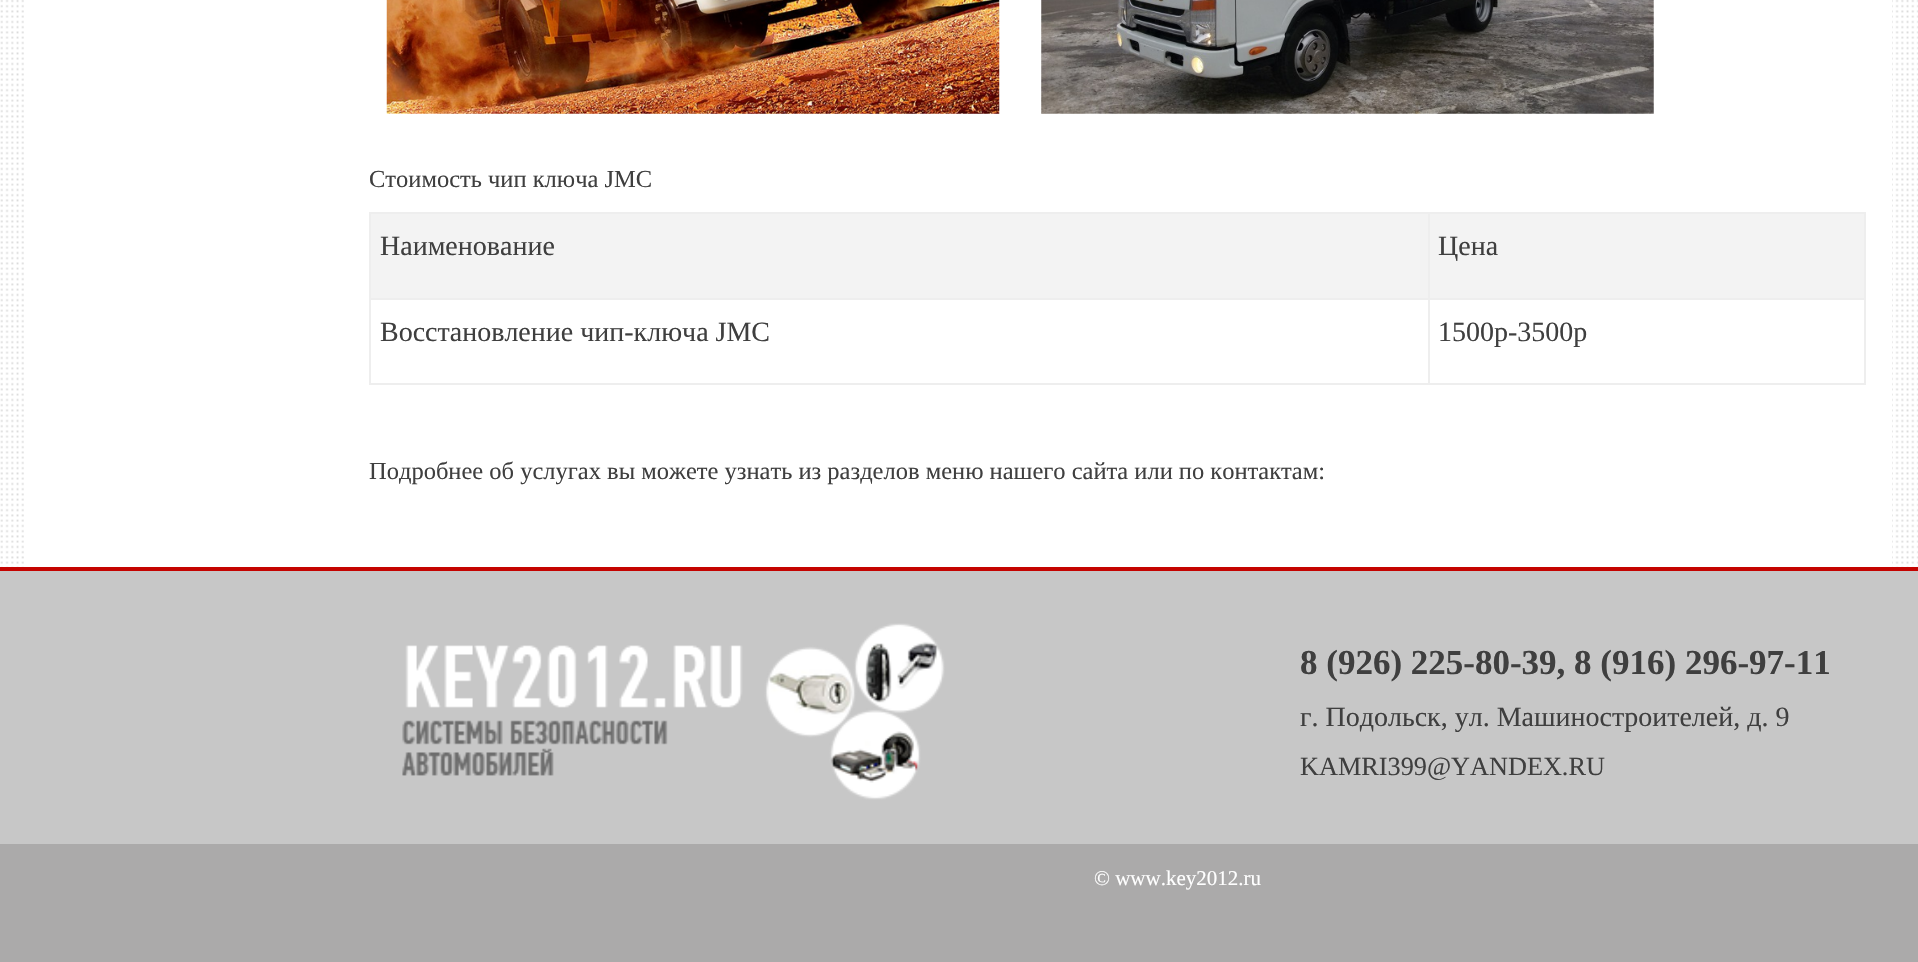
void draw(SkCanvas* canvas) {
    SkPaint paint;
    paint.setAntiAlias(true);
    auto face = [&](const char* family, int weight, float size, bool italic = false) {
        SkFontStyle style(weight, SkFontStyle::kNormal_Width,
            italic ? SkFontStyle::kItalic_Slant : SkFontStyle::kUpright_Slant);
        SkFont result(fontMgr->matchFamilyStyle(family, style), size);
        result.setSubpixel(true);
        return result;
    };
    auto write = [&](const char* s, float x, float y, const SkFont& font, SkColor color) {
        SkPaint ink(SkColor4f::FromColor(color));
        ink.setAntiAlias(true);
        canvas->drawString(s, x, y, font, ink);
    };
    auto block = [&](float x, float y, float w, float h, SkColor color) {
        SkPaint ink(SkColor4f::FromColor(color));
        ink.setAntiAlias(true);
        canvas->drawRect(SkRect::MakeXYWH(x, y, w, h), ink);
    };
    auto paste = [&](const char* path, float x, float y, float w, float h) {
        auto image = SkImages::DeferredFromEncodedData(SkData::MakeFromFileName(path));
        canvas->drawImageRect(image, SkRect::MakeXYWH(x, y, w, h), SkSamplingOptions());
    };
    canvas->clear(SK_ColorWHITE);
    paste("pic1.png", 0, 0, 1918, 567);
    block(26, 0, 1866, 567, SK_ColorWHITE);
    paste("pic2.png", 386, 0, 614, 114);
    paste("pic3.png", 1041, 0, 613, 114);
    auto kFont1 = face("Liberation Serif", 400, 24.5f);
    write("Стоимость чип ключа JMC", 369, 187, kFont1, SkColorSetRGB(63, 63, 63));
    block(371, 214, 1493, 84, SkColorSetRGB(243, 243, 243));
    block(1428, 212, 438, 2, SkColorSetRGB(238, 238, 238));
    block(1428, 298, 438, 2, SkColorSetRGB(238, 238, 238));
    block(1864, 298, 2, 87, SkColorSetRGB(238, 238, 238));
    block(1428, 383, 438, 2, SkColorSetRGB(238, 238, 238));
    block(1428, 298, 2, 87, SkColorSetRGB(238, 238, 238));
    block(369, 298, 1061, 2, SkColorSetRGB(238, 238, 238));
    block(1428, 212, 2, 87, SkColorSetRGB(238, 238, 238));
    block(369, 212, 1061, 2, SkColorSetRGB(238, 238, 238));
    block(369, 383, 1061, 2, SkColorSetRGB(238, 238, 238));
    block(369, 298, 2, 87, SkColorSetRGB(238, 238, 238));
    block(369, 212, 2, 87, SkColorSetRGB(238, 238, 238));
    auto kFont2 = face("Liberation Serif", 400, 28);
    write("Наименование", 380, 255, kFont2, SkColorSetRGB(63, 63, 63));
    block(1864, 212, 2, 87, SkColorSetRGB(238, 238, 238));
    write("Цена", 1438, 255, kFont2, SkColorSetRGB(63, 63, 63));
    write("Восстановление чип-ключа JMC", 380, 341, kFont2, SkColorSetRGB(63, 63, 63));
    write("1500р-3500р", 1438, 341, kFont2, SkColorSetRGB(63, 63, 63));
    write("Подробнее об услугах вы можете узнать из разделов меню нашего сайта или по контактам:", 369, 479, kFont1, SkColorSetRGB(63, 63, 63));
    block(0, 571, 1918, 273, SkColorSetRGB(199, 199, 199));
    block(0, 567, 1918, 4, SkColorSetRGB(196, 3, 0));
    paste("pic4.png", 402, 623, 543, 177);
    auto kFont3 = face("Liberation Serif", 700, 35);
    write("8 (926) 225-80-39, 8 (916) 296-97-11", 1300, 674, kFont3, SkColorSetRGB(63, 63, 63));
    write("г. Подольск, ул. Машиностроителей, д. 9", 1300, 726, kFont2, SkColorSetRGB(63, 63, 63));
    auto kFont4 = face("Liberation Serif", 400, 26.25f);
    write("KAMRI399@YANDEX.RU", 1300, 775, kFont4, SkColorSetRGB(63, 63, 63));
    block(0, 844, 1918, 118, SkColorSetRGB(171, 170, 170));
    auto kFont5 = face("Liberation Serif", 400, 21);
    write("© www.key2012.ru", 1094, 885, kFont5, SK_ColorWHITE);
}
